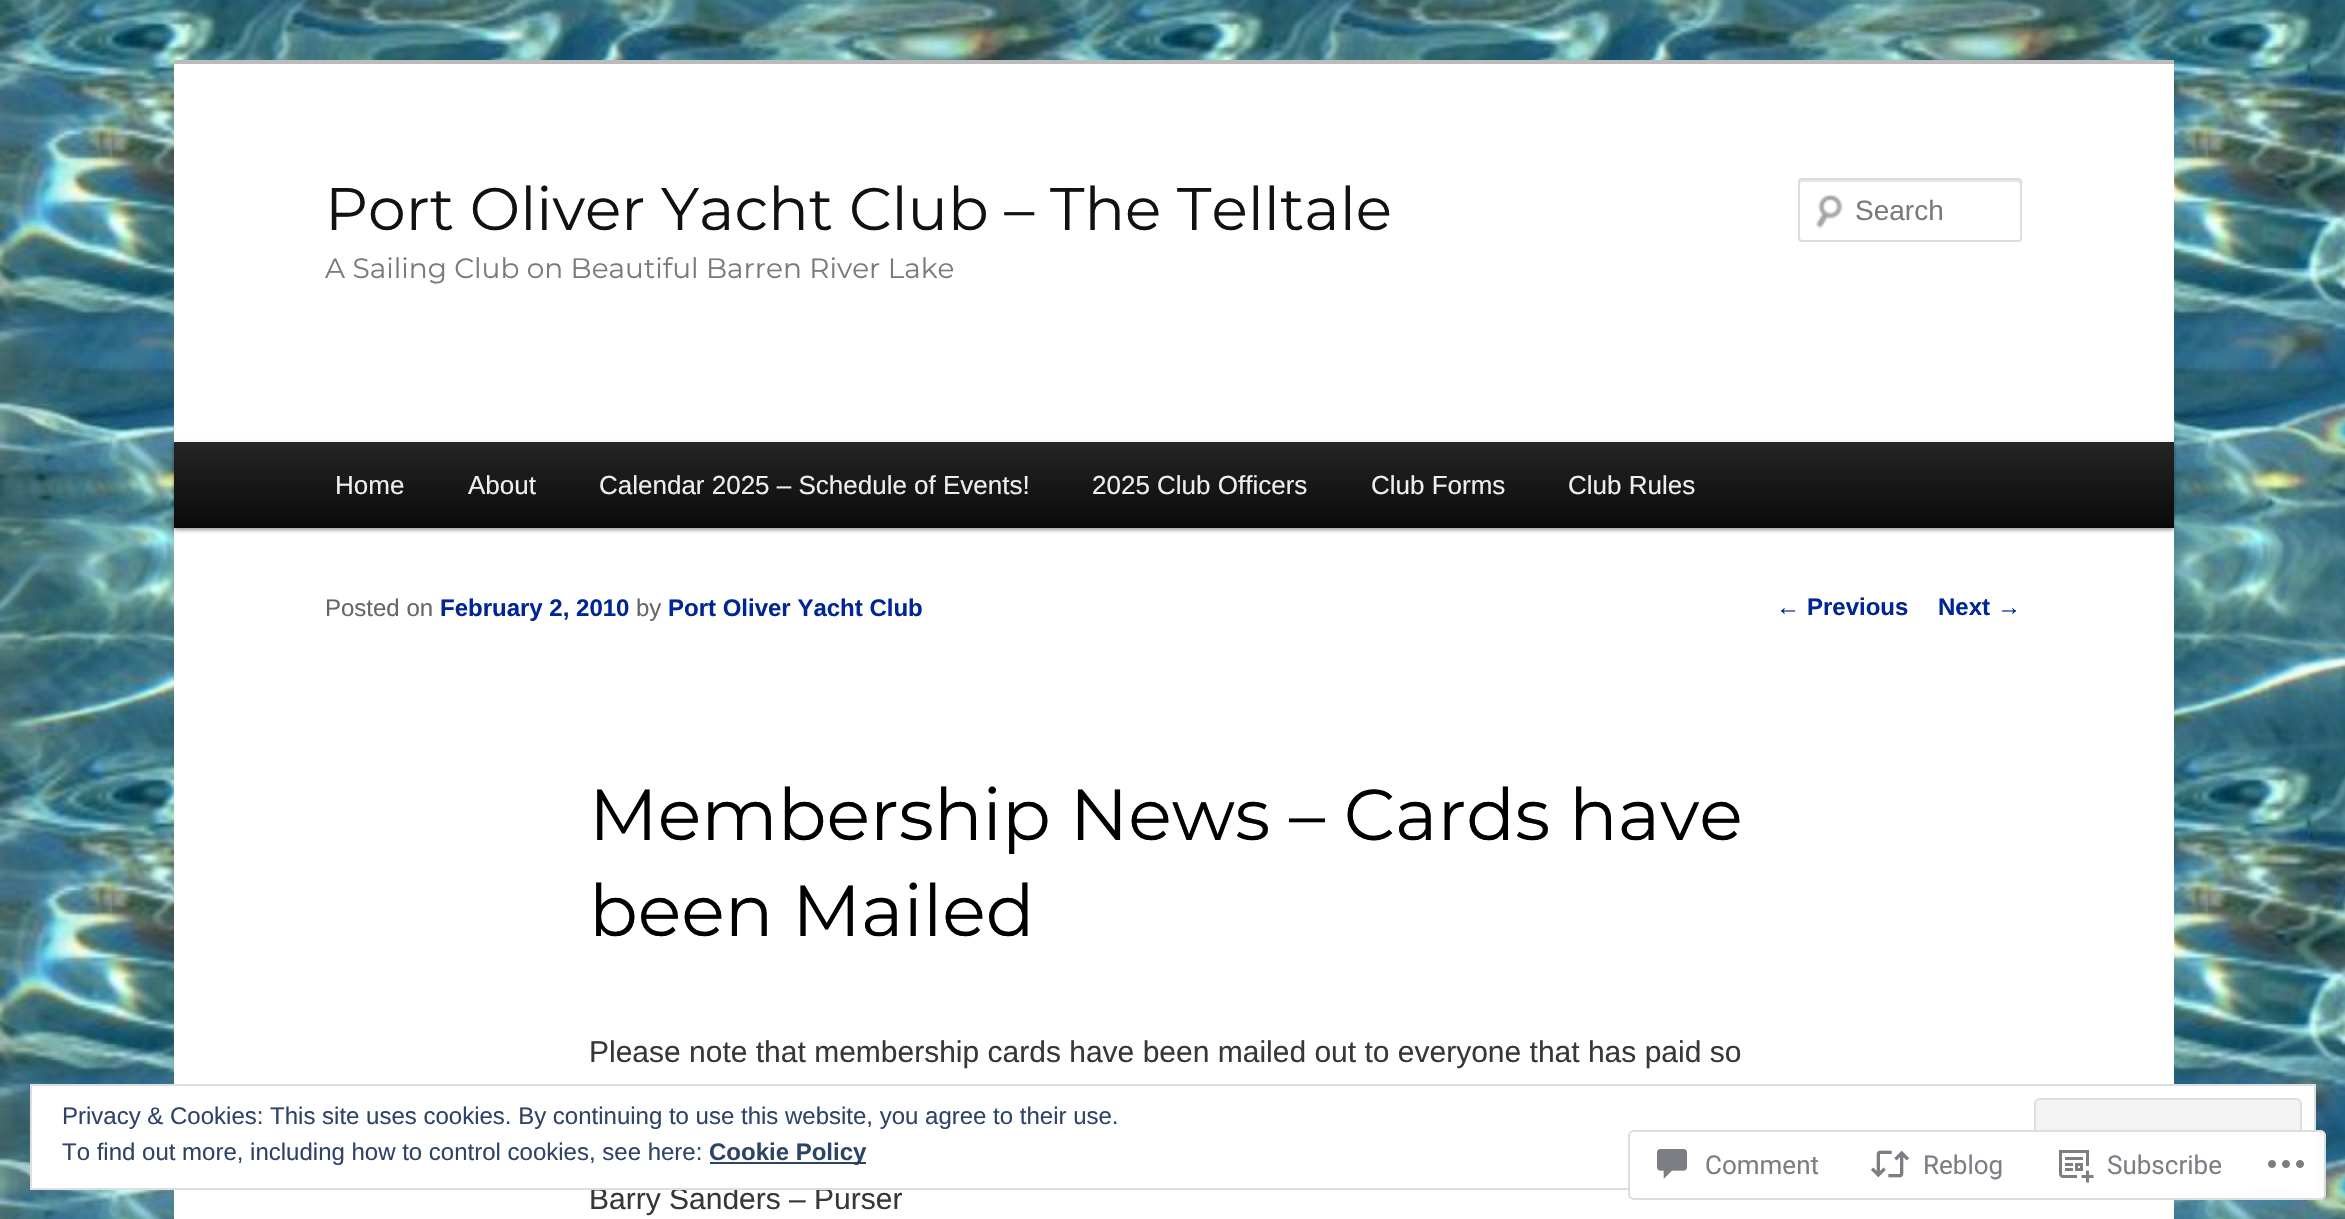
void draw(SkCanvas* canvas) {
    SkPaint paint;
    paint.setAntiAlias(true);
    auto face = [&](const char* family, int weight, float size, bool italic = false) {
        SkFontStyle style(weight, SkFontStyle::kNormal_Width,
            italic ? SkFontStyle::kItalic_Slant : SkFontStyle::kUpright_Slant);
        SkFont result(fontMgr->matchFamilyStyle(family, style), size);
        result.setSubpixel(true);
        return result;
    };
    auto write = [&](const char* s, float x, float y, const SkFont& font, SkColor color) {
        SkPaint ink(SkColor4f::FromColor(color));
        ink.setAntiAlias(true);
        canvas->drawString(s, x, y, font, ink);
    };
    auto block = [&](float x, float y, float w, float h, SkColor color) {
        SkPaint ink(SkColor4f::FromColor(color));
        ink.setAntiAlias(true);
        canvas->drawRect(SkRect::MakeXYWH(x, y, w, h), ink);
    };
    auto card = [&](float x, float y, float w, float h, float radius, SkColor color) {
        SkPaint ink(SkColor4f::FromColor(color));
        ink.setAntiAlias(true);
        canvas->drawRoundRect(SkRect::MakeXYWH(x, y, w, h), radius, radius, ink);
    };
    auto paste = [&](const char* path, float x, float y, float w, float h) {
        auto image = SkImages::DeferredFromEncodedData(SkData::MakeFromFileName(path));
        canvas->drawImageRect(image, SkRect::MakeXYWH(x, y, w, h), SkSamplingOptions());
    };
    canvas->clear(SK_ColorWHITE);
    paste("pic1.png", 0, 0, 2345, 1219);
    block(174, 64, 2000, 1155, SK_ColorWHITE);
    block(174, 60, 2000, 4, SkColorSetRGB(187, 187, 187));
    auto kFont1 = face("Montserrat", 100, 60);
    write("Port Oliver Yacht Club – The Telltale", 325, 230, kFont1, SkColorSetRGB(17, 17, 17));
    auto kFont2 = face("Montserrat", 100, 28);
    write("A Sailing Club on Beautiful Barren River Lake", 325, 278, kFont2, SkColorSetRGB(122, 122, 122));
    paste("pic2.png", 1815, 194, 28, 35);
    paint.setColor(SkColorSetRGB(230, 230, 230));
    canvas->drawPath(SkPathBuilder().moveTo(1802, 182).lineTo(2018, 182).cubicTo(2019, 182, 2020, 183, 2020, 184).lineTo(2020, 182).cubicTo(2020, 181, 2019, 180, 2018, 180).lineTo(1802, 180).cubicTo(1801, 180, 1800, 181, 1800, 182).lineTo(1800, 184).cubicTo(1800, 183, 1801, 182, 1802, 182).close().detach(), paint);
    paint.setStyle(SkPaint::kStroke_Style);
    paint.setStrokeWidth(2);
    paint.setColor(SkColorSetRGB(221, 221, 221));
    canvas->drawRoundRect(SkRect::MakeXYWH(1799, 179, 222, 62), 3, 3, paint);
    auto kFont3 = face("Liberation Sans", 400, 28);
    write("Search", 1855, 220, kFont3, SkColorSetRGB(122, 122, 122));
    paint.setStyle(SkPaint::kFill_Style);
    paint.setColor(SkColorSetARGB(102, 0, 0, 0));
    paint.setMaskFilter(SkMaskFilter::MakeBlur(kNormal_SkBlurStyle, 2));
    canvas->drawRect(SkRect::MakeXYWH(174, 444, 2000, 86), paint);
    paint.setMaskFilter(nullptr);
    {
        const SkColor colors[] = {SkColorSetRGB(37, 37, 37), SkColorSetRGB(10, 10, 10)};
        const float stops[] = {0, 1};
        const SkPoint ends[] = {{1174, 442}, {1174, 528}};
        paint.setShader(SkGradientShader::MakeLinear(ends, colors, stops, 2, SkTileMode::kClamp));
        paint.setAlpha(255);
    }
    canvas->drawRect(SkRect::MakeXYWH(174, 442, 2000, 86), paint);
    auto kFont4 = face("Liberation Sans", 400, 26);
    write("Home", 335, 494, kFont4, SkColorSetRGB(238, 238, 238));
    write("About", 468, 494, kFont4, SkColorSetRGB(238, 238, 238));
    write("Calendar 2025 – Schedule of Events!", 599, 494, kFont4, SkColorSetRGB(238, 238, 238));
    write("2025 Club Officers", 1092, 494, kFont4, SkColorSetRGB(238, 238, 238));
    write("Club Forms", 1371, 494, kFont4, SkColorSetRGB(238, 238, 238));
    write("Club Rules", 1568, 494, kFont4, SkColorSetRGB(238, 238, 238));
    auto kFont5 = face("Liberation Sans", 400, 24);
    write("Posted on", 325, 616, kFont5, SkColorSetRGB(102, 102, 102));
    auto kFont6 = face("Liberation Sans", 700, 24);
    write("February 2, 2010", 440, 616, kFont6, SkColorSetRGB(0, 37, 149));
    write("by", 636, 616, kFont5, SkColorSetRGB(102, 102, 102));
    write("Port Oliver Yacht Club", 668, 616, kFont6, SkColorSetRGB(0, 37, 149));
    auto kFont7 = face("Montserrat", 100, 72);
    write("Membership News – Cards have", 589, 840, kFont7, SK_ColorBLACK);
    write("been Mailed", 589, 936, kFont7, SK_ColorBLACK);
    auto kFont8 = face("Liberation Sans", 400, 30);
    write("Please note that membership cards have been mailed out to everyone that has paid so", 589, 1062, kFont8, SkColorSetRGB(55, 55, 55));
    write("Barry Sanders – Purser", 589, 1209, kFont8, SkColorSetRGB(55, 55, 55));
    write("←", 1776, 615, kFont5, SkColorSetRGB(0, 37, 149));
    write("Previous", 1807, 615, kFont6, SkColorSetRGB(0, 37, 149));
    write("Next", 1938, 615, kFont6, SkColorSetRGB(0, 37, 149));
    write("→", 1997, 615, kFont5, SkColorSetRGB(0, 37, 149));
    paint.setShader(nullptr);
    paint.setColor(SK_ColorWHITE);
    canvas->drawRect(SkRect::MakeXYWH(31, 1085, 2284, 104), paint);
    paint.setStyle(SkPaint::kStroke_Style);
    paint.setColor(SkColorSetRGB(222, 222, 222));
    canvas->drawRect(SkRect::MakeXYWH(31, 1085, 2284, 104), paint);
    write("Privacy & Cookies: This site uses cookies. By continuing to use this website, you agree to their use.", 62, 1124, kFont5, SkColorSetRGB(46, 68, 103));
    paint.setStyle(SkPaint::kFill_Style);
    paint.setColor(SkColorSetRGB(243, 243, 243));
    canvas->drawRoundRect(SkRect::MakeXYWH(2035, 1099, 266, 76), 5, 5, paint);
    paint.setStyle(SkPaint::kStroke_Style);
    paint.setColor(SkColorSetRGB(222, 222, 222));
    canvas->drawRoundRect(SkRect::MakeXYWH(2035, 1099, 266, 76), 5, 5, paint);
    write("To find out more, including how to control cookies, see here:", 62, 1160, kFont5, SkColorSetRGB(46, 68, 103));
    block(710, 1162, 156, 2, SkColorSetRGB(46, 68, 103));
    write("Cookie Policy", 709, 1160, kFont6, SkColorSetRGB(46, 68, 103));
    card(1628, 1130, 698, 70, 6, SkColorSetARGB(250, 255, 255, 255));
    paint.setColor(SkColorSetARGB(250, 220, 220, 222));
    canvas->drawRoundRect(SkRect::MakeXYWH(1629, 1131, 696, 68), 5, 5, paint);
    paste("pic3.png", 1657, 1149, 30, 30);
    auto kFont9 = face("Roboto", 400, 26);
    write("Comment", 1705, 1174, kFont9, SkColorSetRGB(123, 127, 133));
    paste("pic4.png", 1870, 1150, 40, 28);
    write("Reblog", 1923, 1174, kFont9, SkColorSetRGB(123, 127, 133));
    paste("pic5.png", 2059, 1150, 35, 33);
    write("Subscribe", 2107, 1174, kFont9, SkColorSetRGB(123, 127, 133));
    paste("pic6.png", 2268, 1160, 36, 8);
}
